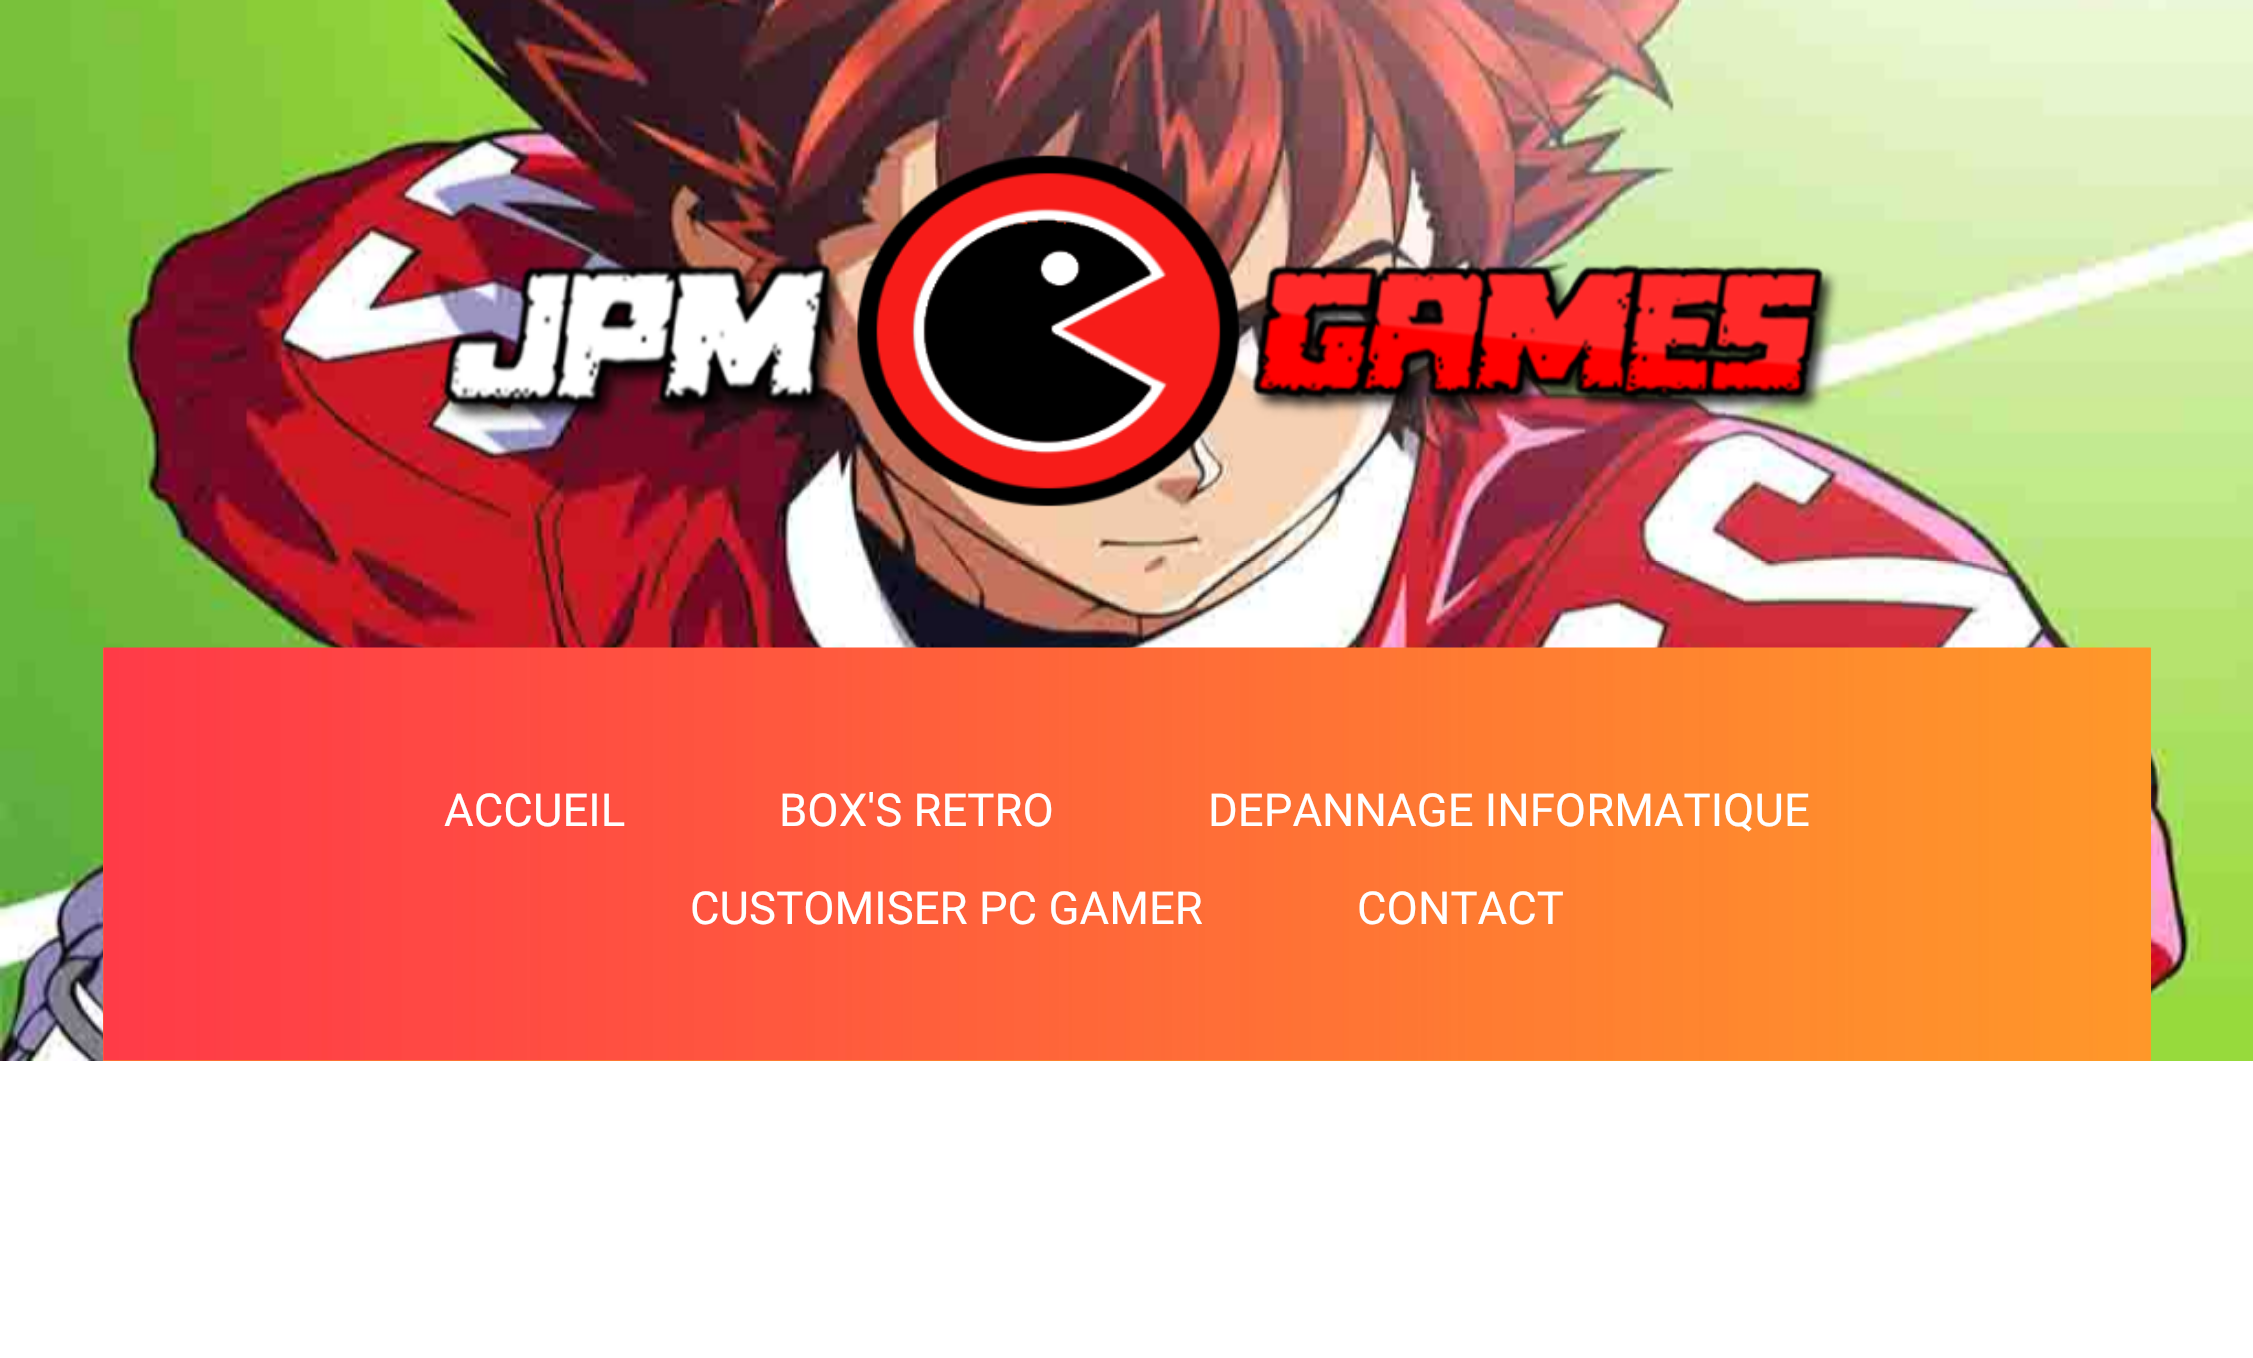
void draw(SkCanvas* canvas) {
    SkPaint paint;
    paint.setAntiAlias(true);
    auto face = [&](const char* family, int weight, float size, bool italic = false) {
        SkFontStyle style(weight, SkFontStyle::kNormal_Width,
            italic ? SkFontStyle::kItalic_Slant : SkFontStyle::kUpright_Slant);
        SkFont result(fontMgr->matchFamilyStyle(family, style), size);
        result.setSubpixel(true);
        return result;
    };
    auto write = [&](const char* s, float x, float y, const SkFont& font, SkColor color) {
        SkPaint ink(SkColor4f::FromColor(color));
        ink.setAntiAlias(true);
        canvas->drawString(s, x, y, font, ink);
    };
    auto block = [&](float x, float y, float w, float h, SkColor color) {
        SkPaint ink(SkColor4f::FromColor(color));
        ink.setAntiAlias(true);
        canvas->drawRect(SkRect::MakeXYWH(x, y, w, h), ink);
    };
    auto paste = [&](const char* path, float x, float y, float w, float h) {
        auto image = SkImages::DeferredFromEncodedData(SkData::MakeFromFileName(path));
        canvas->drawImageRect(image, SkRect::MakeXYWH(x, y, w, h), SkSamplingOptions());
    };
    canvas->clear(SK_ColorWHITE);
    paste("pic1.png", 0, 0, 2253, 1061);
    paste("pic2.png", 442, 155, 1397, 352);
    block(103, 648, 2048, 413, SkColorSetRGB(255, 160, 38));
    paste("pic3.png", 103, 647, 2048, 414);
    auto kFont1 = face("Roboto", 400, 45.5f);
    write("ACCUEIL", 444, 826, kFont1, SK_ColorWHITE);
    write("BOX'S RETRO", 779, 826, kFont1, SK_ColorWHITE);
    write("DEPANNAGE INFORMATIQUE", 1208, 826, kFont1, SK_ColorWHITE);
    write("CUSTOMISER PC GAMER", 690, 924, kFont1, SK_ColorWHITE);
    write("CONTACT", 1357, 924, kFont1, SK_ColorWHITE);
}
